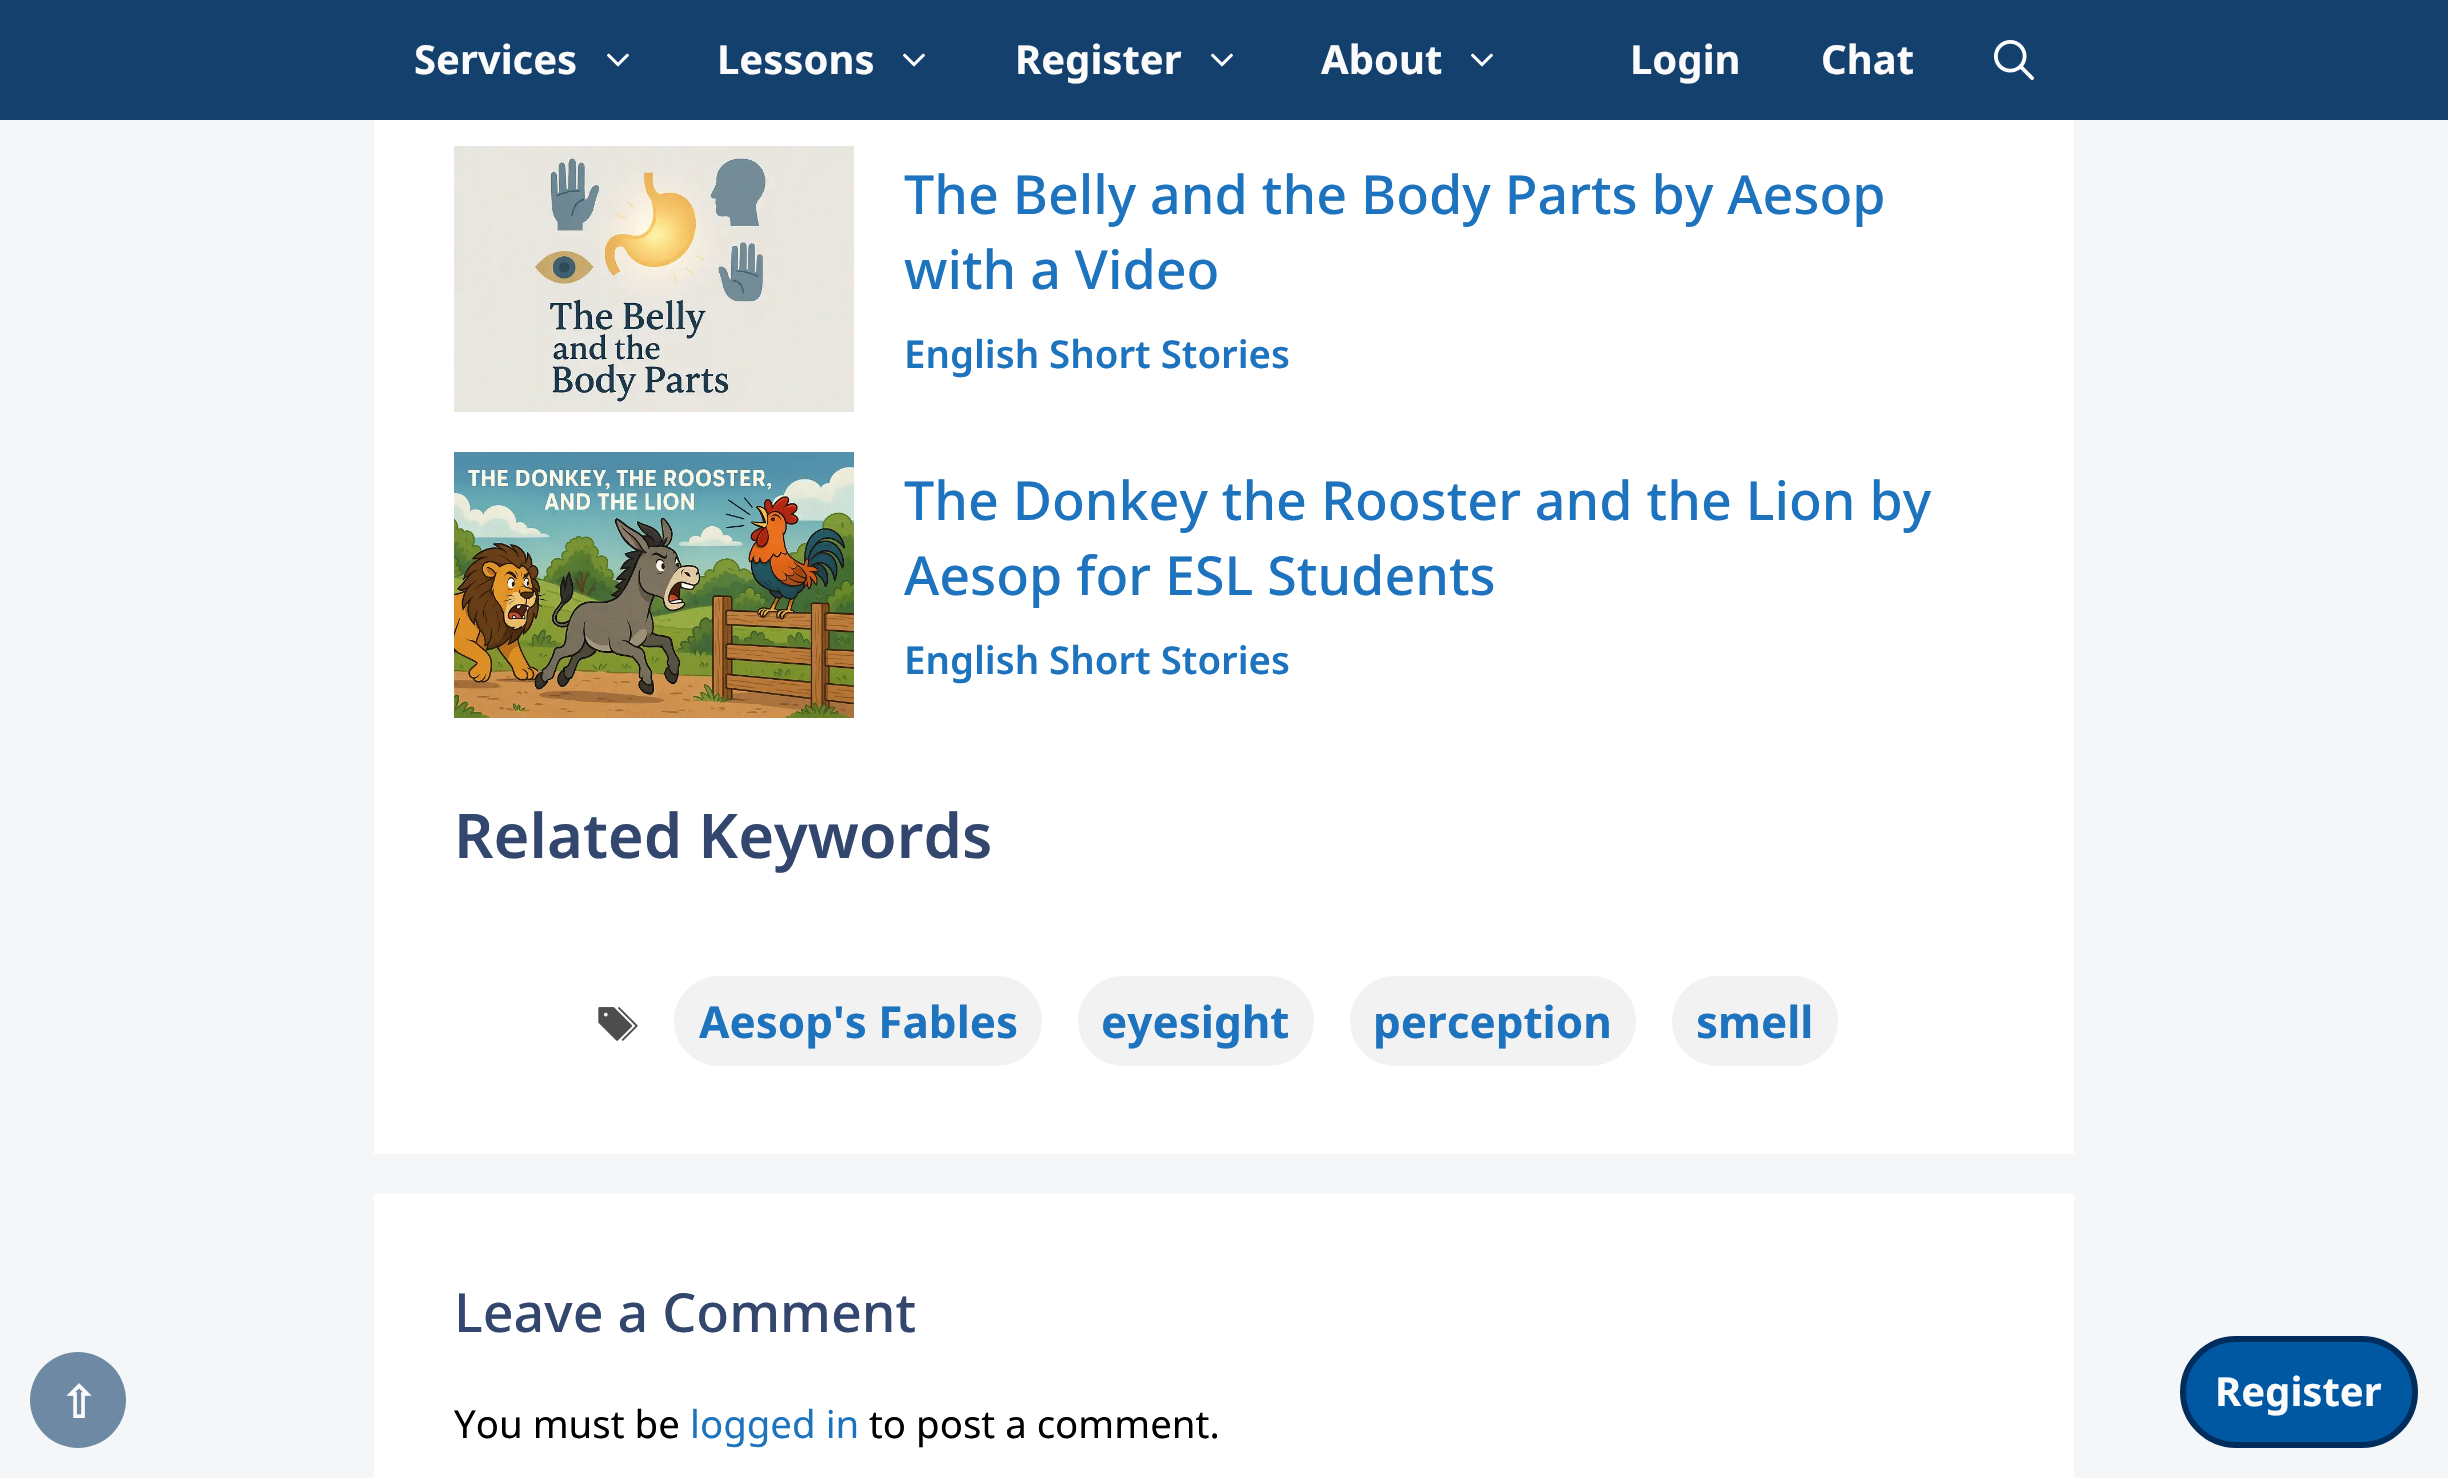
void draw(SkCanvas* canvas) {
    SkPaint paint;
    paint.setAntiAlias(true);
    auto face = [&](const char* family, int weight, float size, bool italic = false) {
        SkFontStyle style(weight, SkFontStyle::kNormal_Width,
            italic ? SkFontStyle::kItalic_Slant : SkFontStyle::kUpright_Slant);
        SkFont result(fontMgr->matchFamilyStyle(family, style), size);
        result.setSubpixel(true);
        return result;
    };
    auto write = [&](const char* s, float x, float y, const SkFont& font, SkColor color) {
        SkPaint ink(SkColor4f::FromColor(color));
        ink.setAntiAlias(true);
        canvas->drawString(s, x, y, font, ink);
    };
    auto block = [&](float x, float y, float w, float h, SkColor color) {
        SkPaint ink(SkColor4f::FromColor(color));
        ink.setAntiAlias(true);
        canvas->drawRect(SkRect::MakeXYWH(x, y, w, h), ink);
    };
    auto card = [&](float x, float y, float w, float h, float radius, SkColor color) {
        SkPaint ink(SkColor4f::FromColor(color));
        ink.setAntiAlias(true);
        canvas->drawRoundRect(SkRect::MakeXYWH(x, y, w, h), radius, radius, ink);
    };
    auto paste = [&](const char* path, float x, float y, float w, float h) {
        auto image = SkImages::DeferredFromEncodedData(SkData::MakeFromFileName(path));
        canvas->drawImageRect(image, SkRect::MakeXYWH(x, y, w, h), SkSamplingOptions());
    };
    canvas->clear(SkColorSetRGB(244, 246, 247));
    block(0, 0, 2448, 120, SkColorSetRGB(19, 64, 109));
    auto kFont1 = face("Noto Sans", 700, 40);
    write("Services", 414, 74, kFont1, SkColorSetRGB(251, 251, 252));
    paste("pic1.png", 607, 53, 22, 14);
    write("Lessons", 717, 74, kFont1, SkColorSetRGB(251, 251, 252));
    paste("pic1.png", 903, 53, 22, 14);
    write("Register", 1015, 74, kFont1, SkColorSetRGB(251, 251, 252));
    paste("pic1.png", 1211, 53, 22, 14);
    write("About", 1321, 74, kFont1, SkColorSetRGB(251, 251, 252));
    paste("pic1.png", 1471, 53, 22, 14);
    write("Login", 1630, 74, kFont1, SkColorSetRGB(251, 251, 252));
    write("Chat", 1821, 74, kFont1, SkColorSetRGB(251, 251, 252));
    paste("pic2.png", 1994, 40, 40, 40);
    paint.setColor(SkColorSetRGB(109, 137, 164));
    canvas->drawCircle(78, 1400, 48, paint);
    auto kFont2 = face("DejaVu Sans", 700, 44);
    write("⇧", 60, 1418, kFont2, SkColorSetRGB(251, 251, 252));
    block(374, 120, 1700, 1034, SK_ColorWHITE);
    paste("pic3.png", 454, 146, 400, 266);
    auto kFont3 = face("Noto Sans", 500, 53.75f);
    write("The Belly and the Body Parts by Aesop", 904, 214, kFont3, SkColorSetRGB(30, 115, 190));
    write("with a Video", 904, 289, kFont3, SkColorSetRGB(30, 115, 190));
    auto kFont4 = face("Noto Sans", 600, 38.4f);
    write("English Short Stories", 904, 368, kFont4, SkColorSetRGB(30, 115, 190));
    paste("pic4.png", 454, 452, 400, 266);
    write("The Donkey the Rooster and the Lion by", 904, 520, kFont3, SkColorSetRGB(30, 115, 190));
    write("Aesop for ESL Students", 904, 595, kFont3, SkColorSetRGB(30, 115, 190));
    write("English Short Stories", 904, 674, kFont4, SkColorSetRGB(30, 115, 190));
    auto kFont5 = face("Noto Sans", 600, 61.5f);
    write("Related Keywords", 454, 858, kFont5, SkColorSetRGB(50, 70, 110));
    paste("pic5.png", 598, 1007, 40, 34);
    card(674, 976, 368, 90, 45, SkColorSetRGB(242, 242, 242));
    auto kFont6 = face("Noto Sans", 700, 44);
    write("Aesop's Fables", 699, 1038, kFont6, SkColorSetRGB(30, 115, 190));
    card(1078, 976, 236, 90, 45, SkColorSetRGB(242, 242, 242));
    write("eyesight", 1101, 1038, kFont6, SkColorSetRGB(30, 115, 190));
    card(1350, 976, 286, 90, 45, SkColorSetRGB(242, 242, 242));
    write("perception", 1373, 1038, kFont6, SkColorSetRGB(30, 115, 190));
    card(1672, 976, 166, 90, 45, SkColorSetRGB(242, 242, 242));
    write("smell", 1696, 1038, kFont6, SkColorSetRGB(30, 115, 190));
    block(374, 1194, 1700, 284, SK_ColorWHITE);
    write("Leave a Comment", 454, 1332, kFont3, SkColorSetRGB(50, 70, 110));
    auto kFont7 = face("Noto Sans", 400, 38.4f);
    write("You must be", 454, 1438, kFont7, SK_ColorBLACK);
    write("logged in", 690, 1438, kFont7, SkColorSetRGB(30, 115, 190));
    write("to post a comment.", 869, 1438, kFont7, SK_ColorBLACK);
    paint.setColor(SkColorSetRGB(0, 88, 163));
    canvas->drawRoundRect(SkRect::MakeXYWH(2183, 1339, 232, 106), 53, 53, paint);
    paint.setStyle(SkPaint::kStroke_Style);
    paint.setStrokeWidth(6);
    paint.setColor(SkColorSetRGB(0, 45, 92));
    canvas->drawRoundRect(SkRect::MakeXYWH(2183, 1339, 232, 106), 53, 53, paint);
    write("Register", 2215, 1406, kFont1, SkColorSetRGB(251, 251, 252));
}
